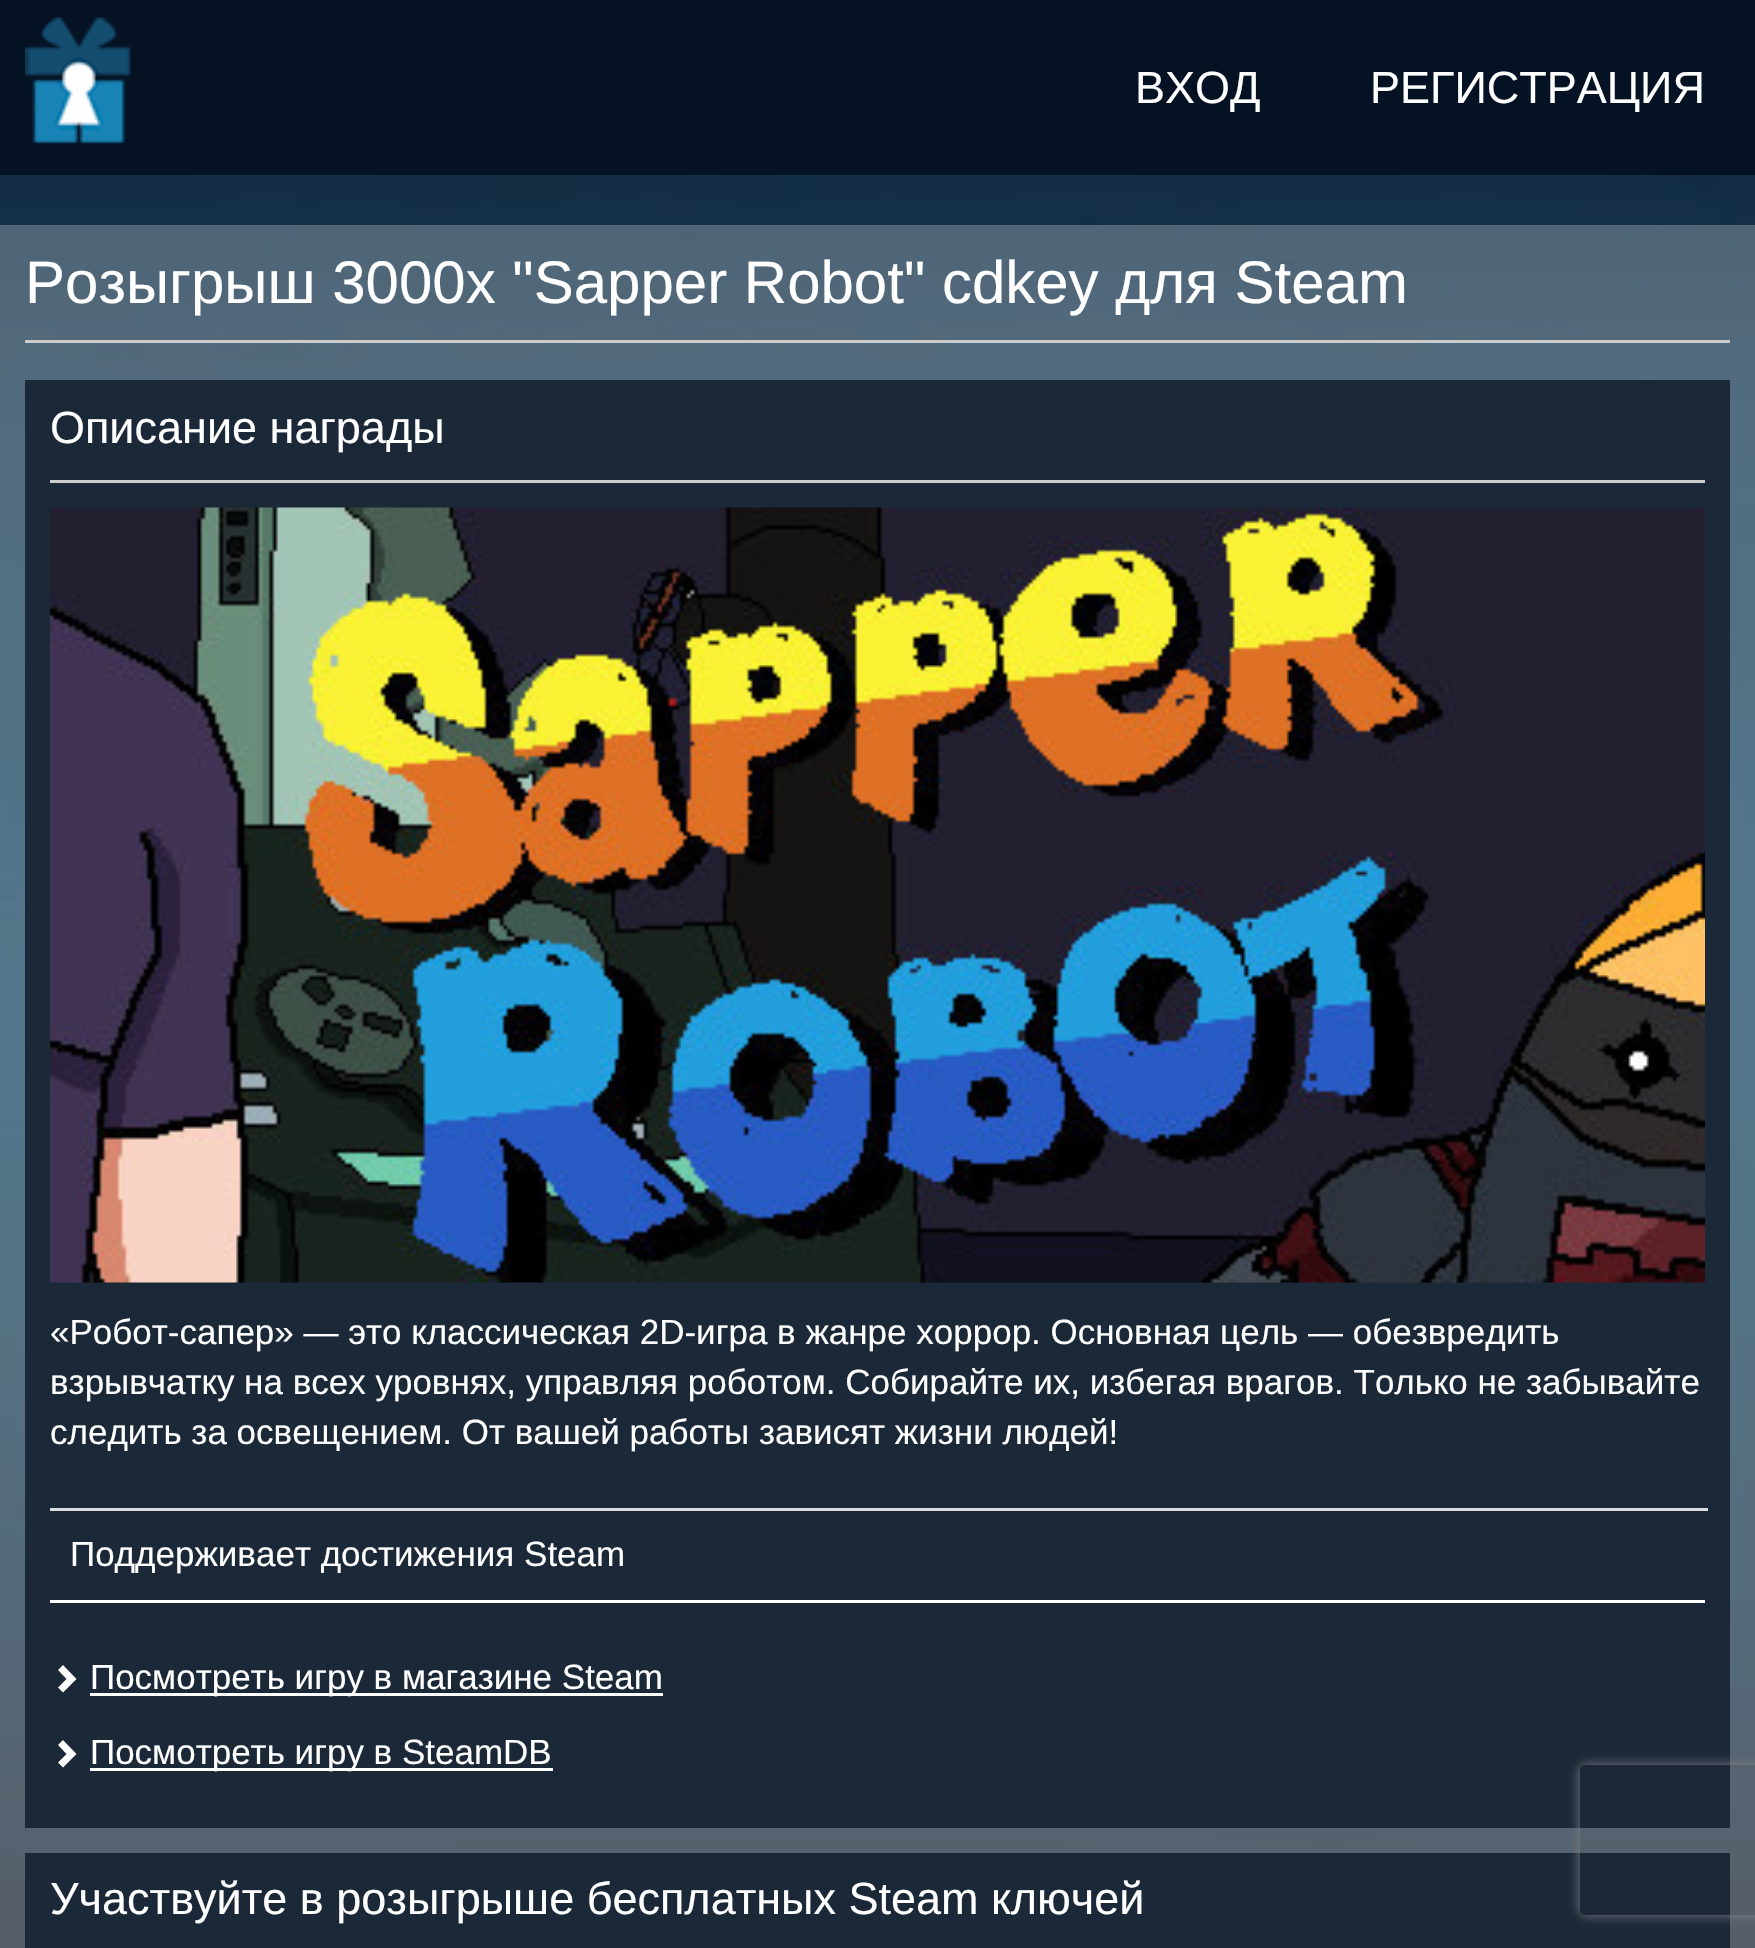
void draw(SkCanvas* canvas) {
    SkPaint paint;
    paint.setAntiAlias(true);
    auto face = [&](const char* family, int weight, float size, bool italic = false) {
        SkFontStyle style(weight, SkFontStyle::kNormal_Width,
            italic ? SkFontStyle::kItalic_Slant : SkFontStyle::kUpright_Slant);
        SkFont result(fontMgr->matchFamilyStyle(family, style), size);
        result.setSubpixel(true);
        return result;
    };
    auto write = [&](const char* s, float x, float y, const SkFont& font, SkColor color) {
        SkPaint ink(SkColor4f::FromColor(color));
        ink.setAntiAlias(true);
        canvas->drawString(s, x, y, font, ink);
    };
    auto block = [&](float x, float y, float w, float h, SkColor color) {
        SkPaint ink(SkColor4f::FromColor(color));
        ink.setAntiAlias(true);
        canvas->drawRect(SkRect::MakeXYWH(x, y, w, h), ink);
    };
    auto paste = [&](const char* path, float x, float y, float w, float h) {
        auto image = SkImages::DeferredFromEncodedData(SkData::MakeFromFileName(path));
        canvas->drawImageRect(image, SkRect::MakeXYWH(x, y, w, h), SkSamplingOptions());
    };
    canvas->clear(SkColorSetRGB(27, 40, 56));
    paste("pic1.png", 0, 175, 1755, 1704);
    block(0, 0, 1755, 175, SkColorSetRGB(5, 18, 36));
    paste("pic2.png", 25, 17, 106, 127);
    auto kFont1 = face("Liberation Sans", 400, 45);
    write("ВХОД", 1135, 103, kFont1, SK_ColorWHITE);
    write("РЕГИСТРАЦИЯ", 1370, 103, kFont1, SK_ColorWHITE);
    block(0, 225, 1755, 1723, SkColorSetARGB(64, 255, 255, 255));
    block(25, 340, 1705, 3, SkColorSetRGB(204, 204, 204));
    auto kFont2 = face("Liberation Sans", 400, 60);
    write("Розыгрыш 3000x \"Sapper Robot\" cdkey для Steam", 25, 303, kFont2, SK_ColorWHITE);
    block(25, 380, 1705, 1448, SkColorSetRGB(27, 40, 56));
    block(50, 480, 1655, 3, SkColorSetRGB(204, 204, 204));
    write("Описание награды", 50, 443, kFont1, SK_ColorWHITE);
    paste("pic3.png", 50, 507, 1655, 776);
    auto kFont3 = face("Liberation Sans", 400, 35);
    write("«Робот-сапер» — это классическая 2D-игра в жанре хоррор. Основная цель — обезвредить", 50, 1344, kFont3, SK_ColorWHITE);
    write("взрывчатку на всех уровнях, управляя роботом. Собирайте их, избегая врагов. Только не забывайте", 50, 1394, kFont3, SK_ColorWHITE);
    write("следить за освещением. От вашей работы зависят жизни людей!", 50, 1444, kFont3, SK_ColorWHITE);
    block(50, 1600, 1655, 3, SK_ColorWHITE);
    block(50, 1508, 1658, 3, SkColorSetRGB(221, 221, 221));
    write("Поддерживает достижения Steam", 70, 1566, kFont3, SK_ColorWHITE);
    paint.setColor(SK_ColorWHITE);
    canvas->drawPath(SkPathBuilder().moveTo(76.5f, 1679).lineTo(63, 1692.5f).lineTo(58, 1687.5f).lineTo(66.5f, 1679).lineTo(58, 1670).lineTo(63, 1665).close().detach(), paint);
    block(90, 1693, 573, 3, SK_ColorWHITE);
    write("Посмотреть игру в магазине Steam", 90, 1689, kFont3, SK_ColorWHITE);
    canvas->drawPath(SkPathBuilder().moveTo(76.5f, 1754).lineTo(63, 1767.5f).lineTo(58, 1762.5f).lineTo(66.5f, 1754).lineTo(58, 1745).lineTo(63, 1740).close().detach(), paint);
    block(90, 1768, 463, 3, SK_ColorWHITE);
    write("Посмотреть игру в SteamDB", 90, 1764, kFont3, SK_ColorWHITE);
    block(25, 1853, 1705, 95, SkColorSetRGB(27, 40, 56));
    write("Участвуйте в розыгрыше бесплатных Steam ключей", 50, 1914, kFont1, SK_ColorWHITE);
    canvas->save();
    canvas->clipPath(SkPathBuilder(SkPathFillType::kEvenOdd).moveTo(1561, 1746).lineTo(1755, 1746).lineTo(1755, 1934).lineTo(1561, 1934).close().moveTo(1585, 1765).lineTo(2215, 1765).cubicTo(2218, 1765, 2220, 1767, 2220, 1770).lineTo(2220, 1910).cubicTo(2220, 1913, 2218, 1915, 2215, 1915).lineTo(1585, 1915).cubicTo(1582, 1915, 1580, 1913, 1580, 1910).lineTo(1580, 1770).cubicTo(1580, 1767, 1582, 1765, 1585, 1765).close().detach(), true);
    paint.setColor(SkColorSetRGB(128, 128, 128));
    paint.setMaskFilter(SkMaskFilter::MakeBlur(kNormal_SkBlurStyle, 6));
    canvas->drawRoundRect(SkRect::MakeXYWH(1580, 1765, 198, 150), 5, 5, paint);
    paint.setMaskFilter(nullptr);
    canvas->restore();
}
